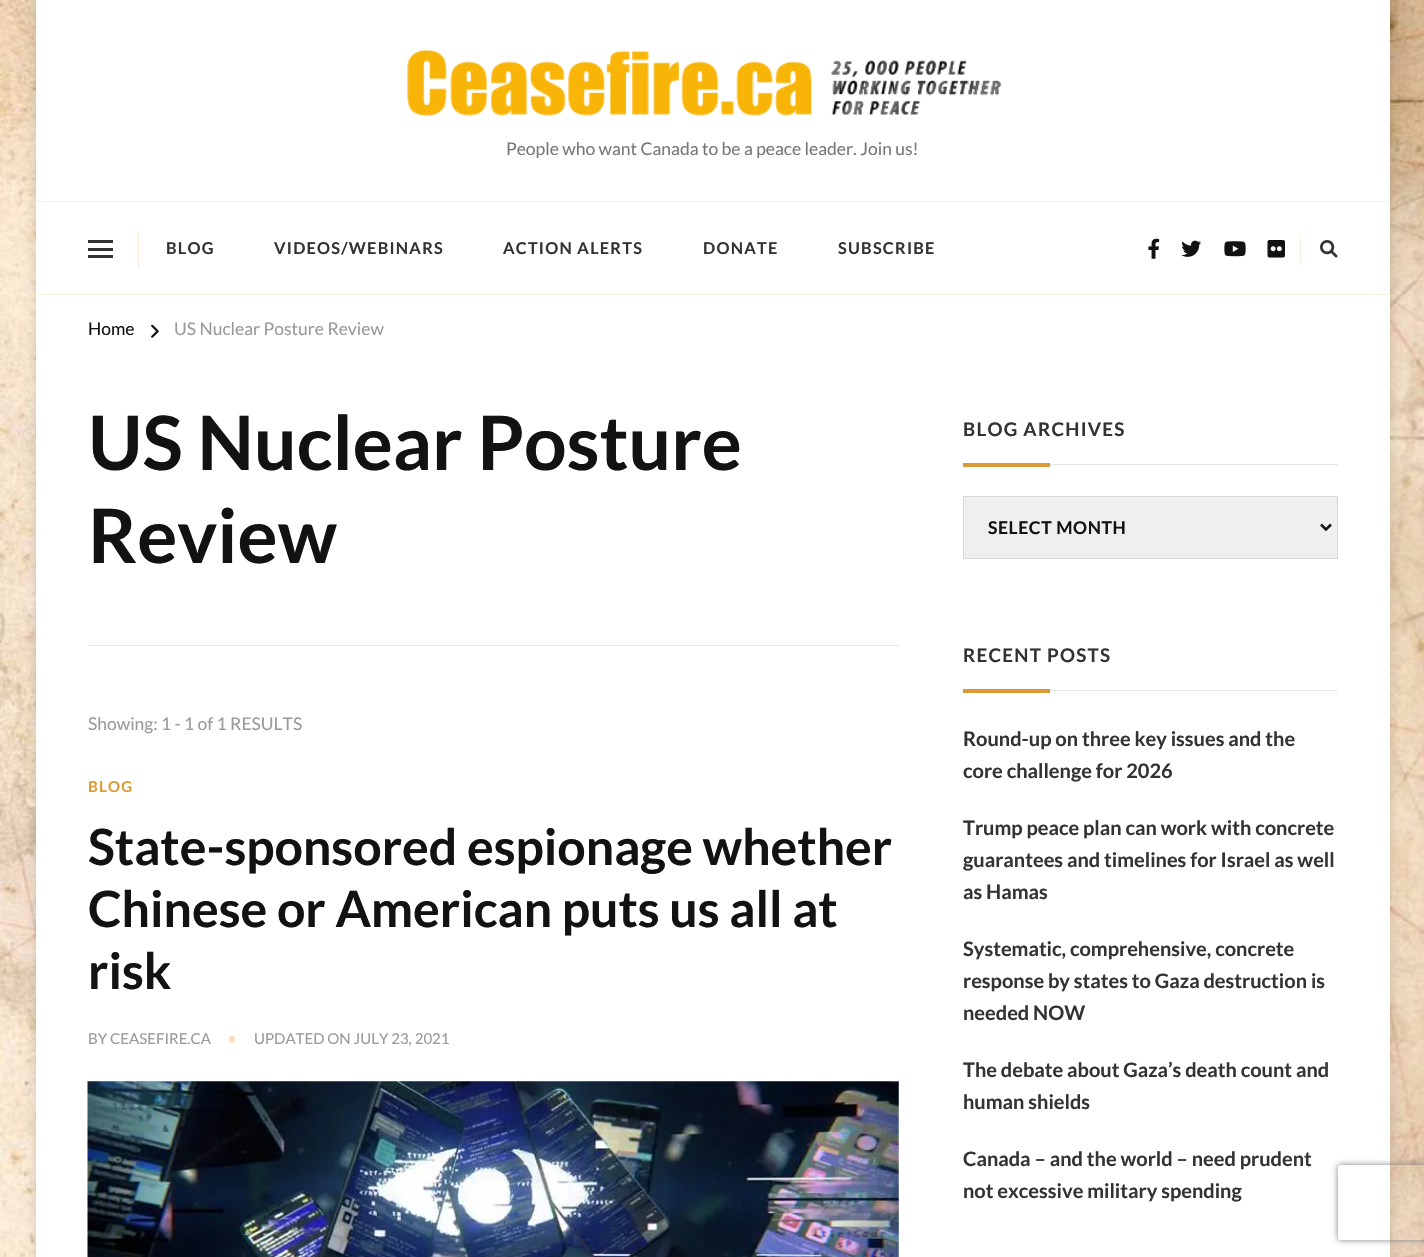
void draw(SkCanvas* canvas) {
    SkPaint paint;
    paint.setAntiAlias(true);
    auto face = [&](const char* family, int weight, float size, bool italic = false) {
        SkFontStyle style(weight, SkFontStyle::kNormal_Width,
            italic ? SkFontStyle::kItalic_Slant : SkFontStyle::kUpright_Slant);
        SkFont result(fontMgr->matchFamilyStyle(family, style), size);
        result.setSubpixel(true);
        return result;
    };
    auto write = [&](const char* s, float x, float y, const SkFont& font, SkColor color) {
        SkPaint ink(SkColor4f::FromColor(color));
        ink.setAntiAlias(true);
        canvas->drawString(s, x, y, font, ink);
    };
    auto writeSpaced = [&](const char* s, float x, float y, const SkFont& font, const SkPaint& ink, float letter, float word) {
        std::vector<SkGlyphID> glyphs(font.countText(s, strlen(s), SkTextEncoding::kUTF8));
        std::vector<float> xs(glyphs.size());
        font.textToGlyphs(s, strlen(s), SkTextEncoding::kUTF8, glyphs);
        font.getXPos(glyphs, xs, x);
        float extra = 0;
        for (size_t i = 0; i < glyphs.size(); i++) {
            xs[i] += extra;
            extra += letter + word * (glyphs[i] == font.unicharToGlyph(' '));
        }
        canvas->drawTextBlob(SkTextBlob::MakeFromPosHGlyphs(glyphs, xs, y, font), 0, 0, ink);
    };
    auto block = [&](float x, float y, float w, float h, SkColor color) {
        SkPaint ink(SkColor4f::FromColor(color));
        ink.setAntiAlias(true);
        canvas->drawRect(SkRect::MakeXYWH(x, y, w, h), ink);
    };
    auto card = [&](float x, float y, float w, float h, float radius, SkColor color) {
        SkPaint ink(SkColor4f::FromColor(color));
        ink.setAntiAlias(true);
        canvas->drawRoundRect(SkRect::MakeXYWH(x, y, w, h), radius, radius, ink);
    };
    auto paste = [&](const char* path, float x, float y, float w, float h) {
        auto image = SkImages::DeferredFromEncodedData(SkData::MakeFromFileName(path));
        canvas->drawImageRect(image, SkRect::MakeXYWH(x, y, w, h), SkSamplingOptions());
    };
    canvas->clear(SK_ColorWHITE);
    paste("pic1.png", 0, 0, 1424, 1257);
    paint.setColor(SkColorSetARGB(41, 0, 0, 0));
    paint.setMaskFilter(SkMaskFilter::MakeBlur(kNormal_SkBlurStyle, 6));
    canvas->drawRect(SkRect::MakeXYWH(36, 0, 1354, 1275), paint);
    paint.setMaskFilter(nullptr);
    block(36, 0, 1354, 1257, SK_ColorWHITE);
    paste("pic2.png", 407, 49, 595, 67);
    auto kFont1 = face("Lato", 400, 17.5f);
    write("People who want Canada to be a peace leader. Join us!", 506, 155, kFont1, SkColorSetRGB(119, 119, 119));
    block(36, 201, 1354, 1, SkColorSetRGB(250, 240, 224));
    block(36, 294, 1354, 1, SkColorSetRGB(250, 240, 224));
    block(138, 230, 1, 38, SkColorSetRGB(248, 235, 214));
    block(88, 240, 25, 3, SkColorSetRGB(51, 51, 51));
    block(88, 248, 25, 3, SkColorSetRGB(51, 51, 51));
    block(88, 255, 25, 3, SkColorSetRGB(51, 51, 51));
    auto kFont2 = face("Lato", 700, 16.25f);
    paint.setColor(SkColorSetRGB(51, 51, 51));
    writeSpaced("BLOG", 166, 254, kFont2, paint, 1.25f, 0);
    writeSpaced("VIDEOS/WEBINARS", 274, 254, kFont2, paint, 1.25f, 0);
    writeSpaced("ACTION ALERTS", 503, 254, kFont2, paint, 1.25f, 0);
    writeSpaced("DONATE", 703, 254, kFont2, paint, 1.25f, 0);
    writeSpaced("SUBSCRIBE", 838, 254, kFont2, paint, 1.25f, 0);
    paste("pic3.png", 1148, 238, 12, 21);
    paste("pic4.png", 1181, 240, 21, 17);
    paste("pic5.png", 1224, 241, 22, 16);
    paste("pic6.png", 1267, 240, 18, 18);
    block(1300, 234, 1, 30, SkColorSetRGB(250, 240, 224));
    paste("pic7.png", 1320, 240, 18, 18);
    write("Home", 88, 335, kFont1, SkColorSetRGB(18, 18, 18));
    paste("pic8.png", 151, 324, 8, 14);
    write("US Nuclear Posture Review", 174, 335, kFont1, SkColorSetRGB(153, 153, 153));
    block(88, 645, 811, 1, SkColorSetRGB(230, 230, 230));
    auto kFont3 = face("Lato", 700, 75);
    write("US Nuclear Posture", 88, 470, kFont3, SkColorSetRGB(18, 18, 18));
    write("Review", 88, 563, kFont3, SkColorSetRGB(18, 18, 18));
    write("Showing: 1 - 1 of 1 RESULTS", 88, 730, kFont1, SkColorSetRGB(153, 153, 153));
    auto kFont4 = face("Lato", 700, 15);
    paint.setColor(SkColorSetRGB(221, 153, 51));
    writeSpaced("BLOG", 88, 792, kFont4, paint, 1.25f, 0);
    auto kFont5 = face("Lato", 700, 50);
    write("State-sponsored espionage whether", 88, 865, kFont5, SkColorSetRGB(18, 18, 18));
    write("Chinese or American puts us all at", 88, 927, kFont5, SkColorSetRGB(18, 18, 18));
    write("risk", 88, 989, kFont5, SkColorSetRGB(18, 18, 18));
    auto kFont6 = face("Lato", 400, 15);
    write("BY CEASEFIRE.CA", 88, 1044, kFont6, SkColorSetRGB(153, 153, 153));
    card(229, 1036, 6, 7, 3, SkColorSetRGB(245, 224, 194));
    write("UPDATED ON JULY 23, 2021", 254, 1044, kFont6, SkColorSetRGB(153, 153, 153));
    paste("pic9.png", 87, 1081, 812, 176);
    block(1050, 464, 288, 1, SkColorSetRGB(230, 230, 230));
    auto kFont7 = face("Lato", 700, 18.75f);
    paint.setColor(SkColorSetRGB(51, 51, 51));
    writeSpaced("BLOG ARCHIVES", 963, 436, kFont7, paint, 1.25f, 0);
    block(963, 463, 87, 4, SkColorSetRGB(221, 153, 51));
    paint.setColor(SkColorSetRGB(239, 239, 239));
    canvas->drawRect(SkRect::MakeXYWH(963.5f, 496.5f, 374, 62), paint);
    paint.setStyle(SkPaint::kStroke_Style);
    paint.setStrokeWidth(1);
    paint.setColor(SkColorSetRGB(215, 215, 215));
    canvas->drawRect(SkRect::MakeXYWH(963.5f, 496.5f, 374, 62), paint);
    paint.setStrokeWidth(2.5f);
    paint.setColor(SkColorSetRGB(18, 18, 18));
    canvas->drawPath(SkPathBuilder().moveTo(1321, 524.5f).lineTo(1326, 529.5f).lineTo(1331, 524.5f).detach(), paint);
    auto kFont8 = face("Lato", 700, 17.5f);
    paint.setStyle(SkPaint::kFill_Style);
    writeSpaced("SELECT MONTH", 988, 534, kFont8, paint, 0.6f, 0);
    block(1050, 690, 288, 1, SkColorSetRGB(230, 230, 230));
    paint.setColor(SkColorSetRGB(51, 51, 51));
    writeSpaced("RECENT POSTS", 963, 662, kFont7, paint, 1.25f, 0);
    block(963, 689, 87, 4, SkColorSetRGB(221, 153, 51));
    auto kFont9 = face("Lato", 700, 20);
    write("Round-up on three key issues and the", 963, 746, kFont9, SkColorSetRGB(51, 51, 51));
    write("core challenge for 2026", 963, 778, kFont9, SkColorSetRGB(51, 51, 51));
    write("Trump peace plan can work with concrete", 963, 835, kFont9, SkColorSetRGB(51, 51, 51));
    write("guarantees and timelines for Israel as well", 963, 867, kFont9, SkColorSetRGB(51, 51, 51));
    write("as Hamas", 963, 899, kFont9, SkColorSetRGB(51, 51, 51));
    write("Systematic, comprehensive, concrete", 963, 956, kFont9, SkColorSetRGB(51, 51, 51));
    write("response by states to Gaza destruction is", 963, 988, kFont9, SkColorSetRGB(51, 51, 51));
    write("needed NOW", 963, 1020, kFont9, SkColorSetRGB(51, 51, 51));
    write("The debate about Gaza’s death count and", 963, 1077, kFont9, SkColorSetRGB(51, 51, 51));
    write("human shields", 963, 1109, kFont9, SkColorSetRGB(51, 51, 51));
    write("Canada – and the world – need prudent", 963, 1166, kFont9, SkColorSetRGB(51, 51, 51));
    write("not excessive military spending", 963, 1198, kFont9, SkColorSetRGB(51, 51, 51));
    canvas->save();
    canvas->clipPath(SkPathBuilder(SkPathFillType::kEvenOdd).moveTo(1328, 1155).lineTo(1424, 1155).lineTo(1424, 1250).lineTo(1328, 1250).close().moveTo(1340.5f, 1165).lineTo(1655.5f, 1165).cubicTo(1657, 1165, 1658, 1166, 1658, 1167.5f).lineTo(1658, 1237.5f).cubicTo(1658, 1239, 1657, 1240, 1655.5f, 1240).lineTo(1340.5f, 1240).cubicTo(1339, 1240, 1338, 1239, 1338, 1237.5f).lineTo(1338, 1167.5f).cubicTo(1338, 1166, 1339, 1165, 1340.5f, 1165).close().detach(), true);
    paint.setColor(SkColorSetRGB(128, 128, 128));
    paint.setMaskFilter(SkMaskFilter::MakeBlur(kNormal_SkBlurStyle, 3));
    canvas->drawRoundRect(SkRect::MakeXYWH(1338, 1165, 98, 75), 2.5f, 2.5f, paint);
    paint.setMaskFilter(nullptr);
    canvas->restore();
}
